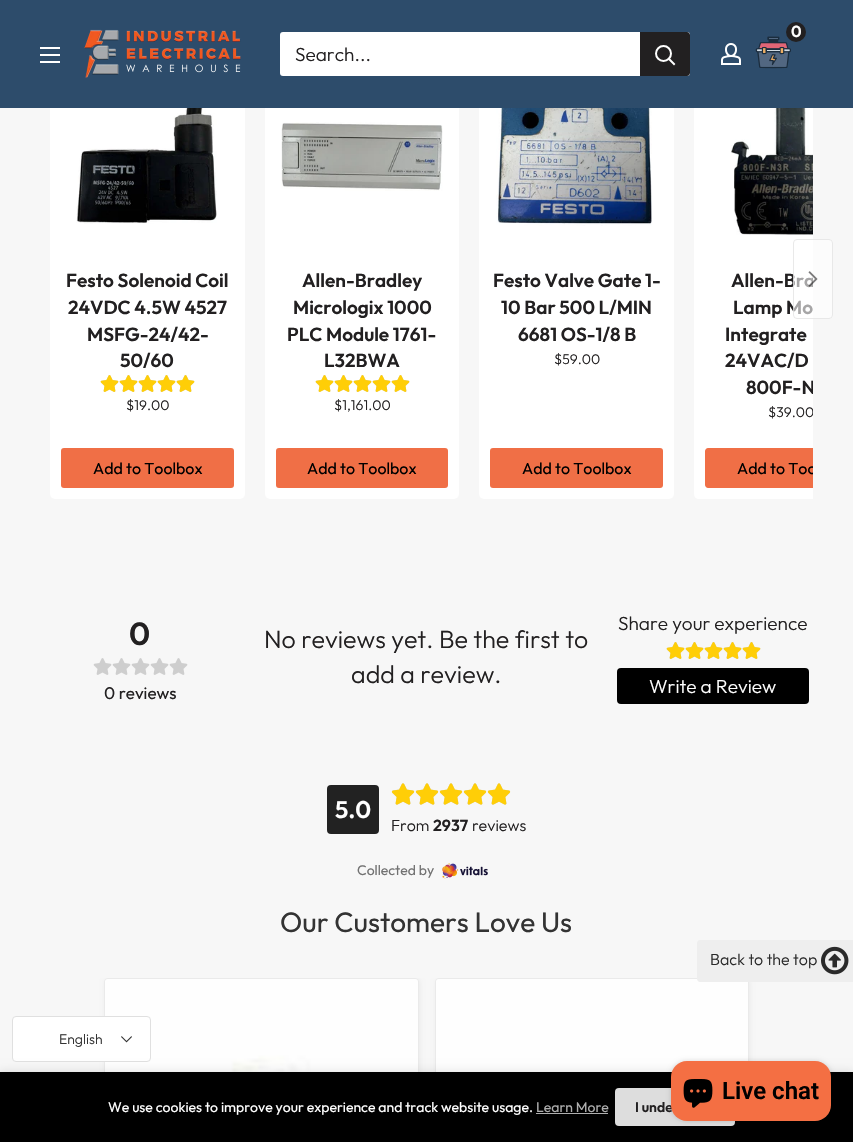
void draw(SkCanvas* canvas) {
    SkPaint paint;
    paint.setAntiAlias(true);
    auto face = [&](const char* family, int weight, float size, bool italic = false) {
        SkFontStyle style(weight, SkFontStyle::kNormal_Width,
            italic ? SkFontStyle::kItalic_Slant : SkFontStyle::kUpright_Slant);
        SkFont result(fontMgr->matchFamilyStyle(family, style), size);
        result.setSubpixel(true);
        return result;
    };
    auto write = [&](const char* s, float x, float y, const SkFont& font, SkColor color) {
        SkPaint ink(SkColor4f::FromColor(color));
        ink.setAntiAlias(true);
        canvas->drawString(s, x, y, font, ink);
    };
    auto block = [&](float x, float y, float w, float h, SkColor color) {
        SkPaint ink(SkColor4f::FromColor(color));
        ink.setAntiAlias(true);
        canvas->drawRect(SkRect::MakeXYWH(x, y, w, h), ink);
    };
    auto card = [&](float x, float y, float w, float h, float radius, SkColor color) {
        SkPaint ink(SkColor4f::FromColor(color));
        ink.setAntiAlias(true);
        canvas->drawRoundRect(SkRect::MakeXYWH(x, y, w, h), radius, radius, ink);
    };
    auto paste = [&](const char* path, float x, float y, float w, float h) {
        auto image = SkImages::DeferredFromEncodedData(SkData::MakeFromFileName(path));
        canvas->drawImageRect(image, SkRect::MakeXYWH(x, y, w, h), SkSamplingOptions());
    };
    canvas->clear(SkColorSetRGB(247, 247, 247));
    card(50, 48, 195, 451, 5, SK_ColorWHITE);
    card(265, 48, 194, 451, 5, SK_ColorWHITE);
    card(479, 48, 195, 451, 5, SK_ColorWHITE);
    paint.setColor(SK_ColorWHITE);
    canvas->drawPath(SkPathBuilder().moveTo(699, 48).lineTo(813, 48).lineTo(813, 499).lineTo(699, 499).cubicTo(696, 499, 694, 497, 694, 494).lineTo(694, 53).cubicTo(694, 50, 696, 48, 699, 48).close().detach(), paint);
    block(0, 0, 853, 108, SkColorSetRGB(45, 76, 107));
    paste("pic1.png", 40, 47, 20, 16);
    paste("pic2.png", 84, 29, 157, 49);
    card(280, 32, 410, 44, 3, SK_ColorWHITE);
    auto kFont1 = face("Outfit", 300, 19);
    write("Search...", 295, 61, kFont1, SkColorSetRGB(34, 32, 33));
    paint.setColor(SkColorSetRGB(34, 32, 33));
    canvas->drawPath(SkPathBuilder().moveTo(640, 32).lineTo(687, 32).cubicTo(688.5f, 32, 690, 33.5f, 690, 35).lineTo(690, 73).cubicTo(690, 74.5f, 688.5f, 76, 687, 76).lineTo(640, 76).close().detach(), paint);
    paint.setStyle(SkPaint::kStroke_Style);
    paint.setStrokeWidth(2);
    paint.setStrokeCap(SkPaint::kSquare_Cap);
    paint.setColor(SK_ColorWHITE);
    canvas->drawPath(SkPathBuilder().moveTo(674, 64).lineTo(669, 59).detach(), paint);
    paint.setStrokeCap(SkPaint::kButt_Cap);
    canvas->drawCircle(663.5f, 53.5f, 7.5f, paint);
    paste("pic3.png", 755, 36, 36, 33);
    paint.setStyle(SkPaint::kFill_Style);
    paint.setColor(SkColorSetRGB(34, 32, 33));
    canvas->drawCircle(796, 32, 10, paint);
    auto kFont2 = face("Outfit", 600, 16);
    write("0", 791, 37, kFont2, SK_ColorWHITE);
    paste("pic4.png", 721, 43, 20, 22);
    canvas->save();
    canvas->clipRect(SkRect::MakeXYWH(705, 267, 108, 133));
    auto kFont3 = face("Outfit", 600, 19);
    write("Allen-Bra", 731, 287, kFont3, SkColorSetRGB(34, 32, 33));
    canvas->restore();
    write("Lamp Mo", 733, 314, kFont3, SkColorSetRGB(34, 32, 33));
    card(793, 239, 40, 80, 4, SkColorSetARGB(153, 255, 255, 255));
    paint.setStyle(SkPaint::kStroke_Style);
    paint.setStrokeWidth(1);
    paint.setColor(SkColorSetARGB(153, 218, 218, 218));
    canvas->drawRoundRect(SkRect::MakeXYWH(793.5f, 239.5f, 39, 79), 3.5f, 3.5f, paint);
    paste("pic5.png", 808, 271, 10, 16);
    paste("pic6.png", 76, 108, 141, 116);
    write("Festo Solenoid Coil", 66, 287, kFont3, SkColorSetRGB(34, 32, 33));
    write("24VDC 4.5W 4527", 68, 314, kFont3, SkColorSetRGB(34, 32, 33));
    write("MSFG-24/42-", 87, 341, kFont3, SkColorSetRGB(34, 32, 33));
    write("50/60", 120, 367, kFont3, SkColorSetRGB(34, 32, 33));
    paste("pic7.png", 100, 375, 19, 17);
    paste("pic7.png", 119, 375, 19, 17);
    paste("pic7.png", 138, 375, 19, 17);
    paste("pic7.png", 157, 375, 19, 17);
    paste("pic7.png", 176, 375, 19, 17);
    paste("pic8.png", 100, 375, 19, 17);
    paste("pic8.png", 119, 375, 19, 17);
    paste("pic8.png", 138, 375, 19, 17);
    paste("pic8.png", 157, 375, 19, 17);
    paste("pic8.png", 176, 375, 19, 17);
    auto kFont4 = face("Outfit", 300, 14);
    write("$19.00", 126, 410, kFont4, SkColorSetRGB(34, 32, 33));
    card(61, 448, 173, 40, 3, SkColorSetRGB(240, 111, 70));
    auto kFont5 = face("Outfit", 400, 16);
    write("Add to Toolbox", 93, 474, kFont5, SK_ColorBLACK);
    paste("pic9.png", 281, 122, 162, 69);
    write("Allen-Bradley", 302, 287, kFont3, SkColorSetRGB(34, 32, 33));
    write("Micrologix 1000", 293, 314, kFont3, SkColorSetRGB(34, 32, 33));
    write("PLC Module 1761-", 287, 341, kFont3, SkColorSetRGB(34, 32, 33));
    write("L32BWA", 324, 367, kFont3, SkColorSetRGB(34, 32, 33));
    paste("pic7.png", 315, 375, 19, 17);
    paste("pic7.png", 334, 375, 19, 17);
    paste("pic7.png", 353, 375, 19, 17);
    paste("pic7.png", 372, 375, 19, 17);
    paste("pic7.png", 391, 375, 19, 17);
    paste("pic8.png", 315, 375, 19, 17);
    paste("pic8.png", 334, 375, 19, 17);
    paste("pic8.png", 353, 375, 19, 17);
    paste("pic8.png", 372, 375, 19, 17);
    paste("pic8.png", 391, 375, 19, 17);
    write("$1,161.00", 334, 410, kFont4, SkColorSetRGB(34, 32, 33));
    card(276, 448, 172, 40, 3, SkColorSetRGB(240, 111, 70));
    write("Add to Toolbox", 307, 474, kFont5, SK_ColorBLACK);
    paste("pic10.png", 496, 108, 156, 118);
    write("Festo Valve Gate 1-", 493, 287, kFont3, SkColorSetRGB(34, 32, 33));
    write("10 Bar 500 L/MIN", 501, 314, kFont3, SkColorSetRGB(34, 32, 33));
    write("6681 OS-1/8 B", 518, 341, kFont3, SkColorSetRGB(34, 32, 33));
    write("$59.00", 554, 364, kFont4, SkColorSetRGB(34, 32, 33));
    card(490, 448, 173, 40, 3, SkColorSetRGB(240, 111, 70));
    write("Add to Toolbox", 522, 474, kFont5, SK_ColorBLACK);
    paste("pic11.png", 731, 108, 82, 127);
    write("Integrate", 725, 341, kFont3, SkColorSetRGB(34, 32, 33));
    write("24VAC/D", 725, 367, kFont3, SkColorSetRGB(34, 32, 33));
    canvas->save();
    canvas->clipRect(SkRect::MakeXYWH(705, 267, 108, 133));
    write("800F-N", 746, 394, kFont3, SkColorSetRGB(34, 32, 33));
    canvas->restore();
    canvas->save();
    canvas->clipRect(SkRect::MakeXYWH(40, 29, 773, 499));
    write("$39.00", 768, 417, kFont4, SkColorSetRGB(34, 32, 33));
    canvas->restore();
    paint.setStyle(SkPaint::kFill_Style);
    paint.setColor(SkColorSetRGB(240, 111, 70));
    canvas->drawPath(SkPathBuilder().moveTo(708, 448).lineTo(813, 448).lineTo(813, 488).lineTo(708, 488).cubicTo(706.5f, 488, 705, 486.5f, 705, 485).lineTo(705, 451).cubicTo(705, 449.5f, 706.5f, 448, 708, 448).close().detach(), paint);
    canvas->save();
    canvas->clipRect(SkRect::MakeXYWH(40, 29, 773, 499));
    write("Add to Too", 737, 474, kFont5, SK_ColorBLACK);
    canvas->restore();
    auto kFont6 = face("Outfit", 600, 32);
    write("0", 129, 645, kFont6, SkColorSetRGB(34, 32, 33));
    paste("pic12.png", 93, 658, 19, 17);
    paste("pic12.png", 112, 658, 19, 17);
    paste("pic12.png", 131, 658, 19, 17);
    paste("pic12.png", 150, 658, 19, 17);
    paste("pic12.png", 169, 658, 19, 17);
    auto kFont7 = face("Outfit", 400, 17);
    write("0 reviews", 104, 699, kFont7, SkColorSetRGB(34, 32, 33));
    auto kFont8 = face("Outfit", 300, 25);
    write("No reviews yet. Be the first to", 264, 648, kFont8, SkColorSetRGB(34, 32, 33));
    write("add a review.", 351, 683, kFont8, SkColorSetRGB(34, 32, 33));
    write("Share your experience", 618, 630, kFont1, SkColorSetRGB(34, 32, 33));
    paste("pic12.png", 666, 642, 19, 17);
    paste("pic12.png", 685, 642, 19, 17);
    paste("pic12.png", 704, 642, 19, 17);
    paste("pic12.png", 723, 642, 19, 17);
    paste("pic12.png", 742, 642, 19, 17);
    paste("pic13.png", 666, 642, 19, 17);
    paste("pic13.png", 685, 642, 19, 17);
    paste("pic13.png", 704, 642, 19, 17);
    paste("pic13.png", 723, 642, 19, 17);
    paste("pic13.png", 742, 642, 19, 17);
    card(617, 668, 192, 36, 4, SK_ColorBLACK);
    write("Write a Review", 649, 693, kFont1, SK_ColorWHITE);
    paste("pic15.png", 392, 783, 22, 22);
    paste("pic14.png", 391, 783, 24, 22);
    paste("pic15.png", 416, 783, 22, 22);
    paste("pic14.png", 415, 783, 24, 22);
    paste("pic15.png", 440, 783, 22, 22);
    paste("pic14.png", 439, 783, 24, 22);
    paste("pic15.png", 464, 783, 22, 22);
    paste("pic14.png", 463, 783, 24, 22);
    paste("pic15.png", 488, 783, 22, 22);
    paste("pic14.png", 487, 783, 24, 22);
    card(327, 785, 52, 49, 4, SkColorSetRGB(34, 34, 34));
    auto kFont9 = face("Outfit", 600, 24);
    write("5.0", 335, 818, kFont9, SK_ColorWHITE);
    auto kFont10 = face("Outfit", 300, 16);
    write("From", 391, 831, kFont10, SkColorSetRGB(34, 32, 33));
    write("2937", 433, 831, kFont2, SkColorSetRGB(34, 32, 33));
    write("reviews", 472, 831, kFont10, SkColorSetRGB(34, 32, 33));
    auto kFont11 = face("Outfit", 400, 14);
    write("Collected by", 357, 875, kFont11, SkColorSetRGB(114, 114, 114));
    paste("pic16.png", 442, 863, 46, 16);
    auto kFont12 = face("Outfit", 400, 28);
    write("Our Customers Love Us", 280, 932, kFont12, SkColorSetRGB(51, 51, 51));
    canvas->save();
    canvas->clipRect(SkRect::MakeXYWH(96, 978, 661, 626));
    paint.setColor(SkColorSetRGB(234, 234, 234));
    paint.setMaskFilter(SkMaskFilter::MakeBlur(kNormal_SkBlurStyle, 2.5f));
    canvas->drawRoundRect(SkRect::MakeXYWH(105, 979, 315, 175), 4, 4, paint);
    paint.setMaskFilter(nullptr);
    canvas->restore();
    paint.setStyle(SkPaint::kStroke_Style);
    canvas->drawRoundRect(SkRect::MakeXYWH(104.5f, 978.5f, 314, 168), 3.5f, 3.5f, paint);
    paste("pic17.png", 105, 979, 313, 93);
    canvas->save();
    canvas->clipRect(SkRect::MakeXYWH(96, 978, 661, 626));
    paint.setStyle(SkPaint::kFill_Style);
    paint.setMaskFilter(SkMaskFilter::MakeBlur(kNormal_SkBlurStyle, 2.5f));
    canvas->drawRoundRect(SkRect::MakeXYWH(436, 979, 314, 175), 4, 4, paint);
    paint.setMaskFilter(nullptr);
    canvas->restore();
    paint.setStyle(SkPaint::kStroke_Style);
    canvas->drawRoundRect(SkRect::MakeXYWH(435.5f, 978.5f, 313, 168), 3.5f, 3.5f, paint);
    paste("pic18.png", 436, 979, 312, 93);
    paint.setStyle(SkPaint::kFill_Style);
    paint.setColor(SkColorSetRGB(238, 238, 238));
    canvas->drawPath(SkPathBuilder().moveTo(700, 940).lineTo(853, 940).lineTo(853, 982).lineTo(700, 982).cubicTo(698.5f, 982, 697, 980.5f, 697, 979).lineTo(697, 943).cubicTo(697, 941.5f, 698.5f, 940, 700, 940).close().detach(), paint);
    write("Back to the top", 710, 965, kFont10, SkColorSetRGB(42, 42, 42));
    paste("pic19.png", 821, 946, 28, 29);
    paint.setColor(SK_ColorWHITE);
    canvas->drawRoundRect(SkRect::MakeXYWH(12.5f, 1016.5f, 138, 45), 3.5f, 3.5f, paint);
    paint.setStyle(SkPaint::kStroke_Style);
    paint.setColor(SkColorSetRGB(224, 224, 224));
    canvas->drawRoundRect(SkRect::MakeXYWH(12.5f, 1016.5f, 138, 45), 3.5f, 3.5f, paint);
    write("English", 59, 1044, kFont4, SkColorSetRGB(51, 51, 51));
    paste("pic20.png", 121, 1036, 11, 7);
    paint.setStyle(SkPaint::kFill_Style);
    paint.setColor(SkColorSetARGB(26, 0, 0, 0));
    paint.setMaskFilter(SkMaskFilter::MakeBlur(kNormal_SkBlurStyle, 4.5f));
    canvas->drawRect(SkRect::MakeXYWH(-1, 1071, 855, 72), paint);
    paint.setMaskFilter(nullptr);
    block(0, 1072, 853, 70, SK_ColorBLACK);
    card(615, 1088, 120, 38, 4, SkColorSetRGB(221, 221, 221));
    paint.setColor(SkColorSetARGB(38, 0, 0, 0));
    paint.setMaskFilter(SkMaskFilter::MakeBlur(kNormal_SkBlurStyle, 2.5f));
    canvas->drawRoundRect(SkRect::MakeXYWH(671, 1061, 160, 60), 16, 16, paint);
    paint.setMaskFilter(nullptr);
    auto kFont13 = face("Outfit", 600, 14);
    write("I unde", 635, 1112, kFont13, SkColorSetRGB(34, 32, 33));
    card(671, 1061, 160, 60, 16, SkColorSetRGB(244, 111, 67));
    paste("pic21.png", 683, 1079, 30, 29);
    auto kFont14 = face("Roboto", 600, 24);
    write("Live chat", 722, 1099, kFont14, SK_ColorBLACK);
    write("We use cookies to improve your experience and track website usage.", 108, 1112, kFont11, SK_ColorWHITE);
    write("Learn More", 536, 1112, kFont11, SkColorSetRGB(174, 174, 174));
    block(536, 1113, 72, 1, SkColorSetRGB(174, 174, 174));
}
